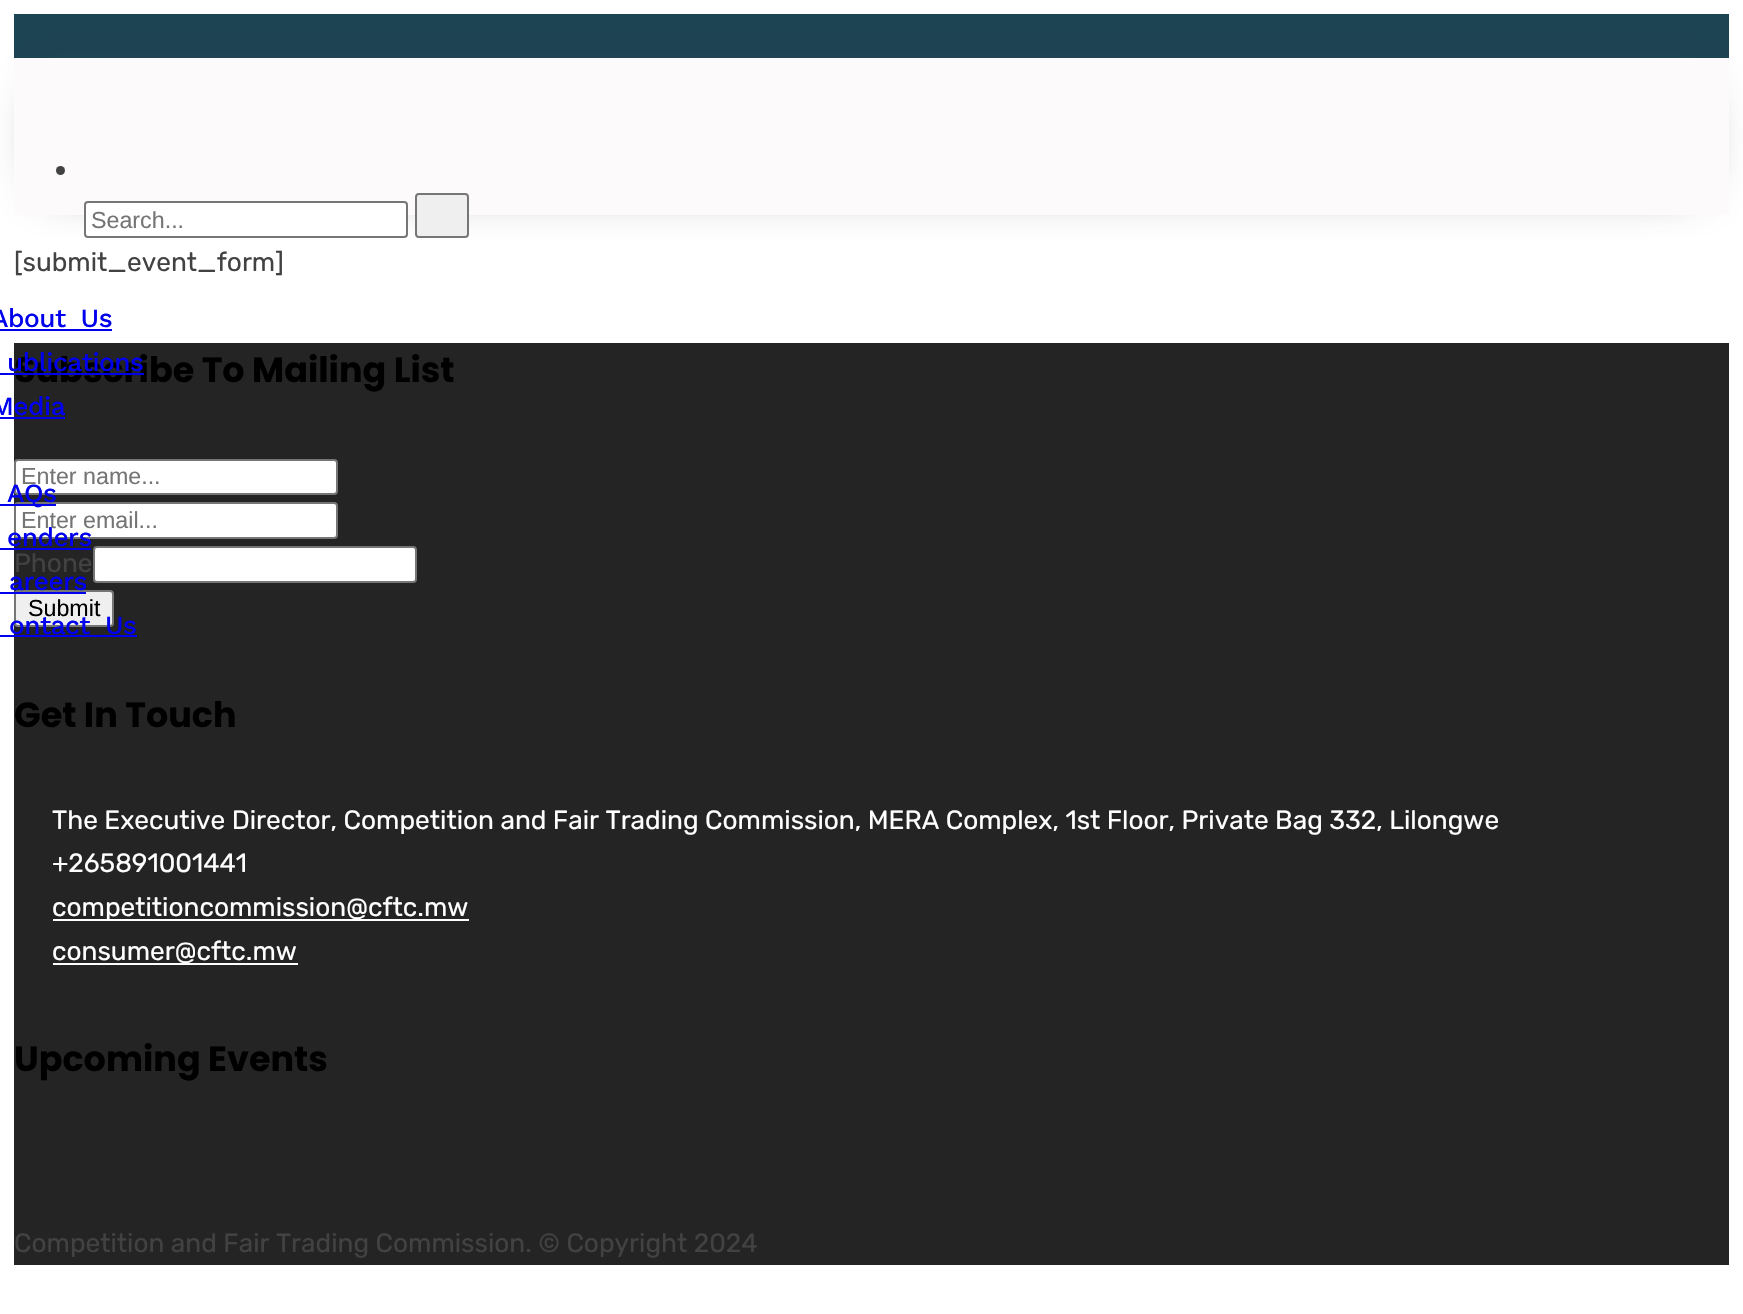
void draw(SkCanvas* canvas) {
    SkPaint paint;
    paint.setAntiAlias(true);
    auto face = [&](const char* family, int weight, float size, bool italic = false) {
        SkFontStyle style(weight, SkFontStyle::kNormal_Width,
            italic ? SkFontStyle::kItalic_Slant : SkFontStyle::kUpright_Slant);
        SkFont result(fontMgr->matchFamilyStyle(family, style), size);
        result.setSubpixel(true);
        return result;
    };
    auto write = [&](const char* s, float x, float y, const SkFont& font, SkColor color) {
        SkPaint ink(SkColor4f::FromColor(color));
        ink.setAntiAlias(true);
        canvas->drawString(s, x, y, font, ink);
    };
    auto writeSpaced = [&](const char* s, float x, float y, const SkFont& font, const SkPaint& ink, float letter, float word) {
        std::vector<SkGlyphID> glyphs(font.countText(s, strlen(s), SkTextEncoding::kUTF8));
        std::vector<float> xs(glyphs.size());
        font.textToGlyphs(s, strlen(s), SkTextEncoding::kUTF8, glyphs);
        font.getXPos(glyphs, xs, x);
        float extra = 0;
        for (size_t i = 0; i < glyphs.size(); i++) {
            xs[i] += extra;
            extra += letter + word * (glyphs[i] == font.unicharToGlyph(' '));
        }
        canvas->drawTextBlob(SkTextBlob::MakeFromPosHGlyphs(glyphs, xs, y, font), 0, 0, ink);
    };
    auto block = [&](float x, float y, float w, float h, SkColor color) {
        SkPaint ink(SkColor4f::FromColor(color));
        ink.setAntiAlias(true);
        canvas->drawRect(SkRect::MakeXYWH(x, y, w, h), ink);
    };
    canvas->clear(SK_ColorWHITE);
    block(14, 14, 1715, 44, SkColorSetRGB(29, 68, 83));
    paint.setColor(SkColorSetRGB(66, 66, 66));
    paint.setMaskFilter(SkMaskFilter::MakeBlur(kNormal_SkBlurStyle, 25.5f));
    canvas->drawRect(SkRect::MakeXYWH(51, 95, 1641, 84), paint);
    paint.setMaskFilter(nullptr);
    block(14, 58, 1715, 157, SkColorSetRGB(252, 250, 250));
    canvas->drawCircle(60.5f, 170.5f, 4.5f, paint);
    paint.setColor(SK_ColorWHITE);
    canvas->drawRoundRect(SkRect::MakeXYWH(85, 202, 322, 35), 3, 3, paint);
    paint.setStyle(SkPaint::kStroke_Style);
    paint.setStrokeWidth(2);
    paint.setColor(SkColorSetRGB(118, 118, 118));
    canvas->drawRoundRect(SkRect::MakeXYWH(85, 202, 322, 35), 3, 3, paint);
    auto kFont1 = face("Liberation Sans", 400, 23.25f);
    write("Search...", 91, 228, kFont1, SkColorSetRGB(117, 117, 117));
    paint.setStyle(SkPaint::kFill_Style);
    paint.setColor(SkColorSetRGB(239, 239, 239));
    canvas->drawRoundRect(SkRect::MakeXYWH(416, 194, 52, 43), 3, 3, paint);
    paint.setStyle(SkPaint::kStroke_Style);
    paint.setColor(SkColorSetRGB(118, 118, 118));
    canvas->drawRoundRect(SkRect::MakeXYWH(416, 194, 52, 43), 3, 3, paint);
    auto kFont2 = face("Work Sans", 500, 26.25f);
    paint.setStyle(SkPaint::kFill_Style);
    paint.setColor(SkColorSetRGB(0, 0, 238));
    writeSpaced("About Us", -9, 327, kFont2, paint, -0.5f, 7);
    block(0, 329, 112, 2, SkColorSetRGB(0, 0, 238));
    block(14, 343, 1715, 922, SkColorSetRGB(36, 36, 36));
    auto kFont3 = face("Poppins", 700, 35);
    write("Subscribe To Mailing List", 14, 382, kFont3, SK_ColorBLACK);
    writeSpaced("ublications", 7, 371, kFont2, paint, -0.5f, 0);
    block(0, 373, 144, 2, SkColorSetRGB(0, 0, 238));
    writeSpaced("Media", -9, 415, kFont2, paint, -0.5f, 0);
    block(0, 417, 65, 2, SkColorSetRGB(0, 0, 238));
    paint.setColor(SK_ColorWHITE);
    canvas->drawRoundRect(SkRect::MakeXYWH(15, 503, 322, 35), 3, 3, paint);
    paint.setStyle(SkPaint::kStroke_Style);
    paint.setColor(SkColorSetRGB(118, 118, 118));
    canvas->drawRoundRect(SkRect::MakeXYWH(15, 503, 322, 35), 3, 3, paint);
    block(0, 504, 56, 2, SkColorSetRGB(0, 0, 238));
    paint.setStyle(SkPaint::kFill_Style);
    paint.setColor(SK_ColorWHITE);
    canvas->drawRoundRect(SkRect::MakeXYWH(15, 460, 322, 34), 3, 3, paint);
    paint.setStyle(SkPaint::kStroke_Style);
    paint.setColor(SkColorSetRGB(118, 118, 118));
    canvas->drawRoundRect(SkRect::MakeXYWH(15, 460, 322, 34), 3, 3, paint);
    paint.setStyle(SkPaint::kFill_Style);
    paint.setColor(SkColorSetRGB(0, 0, 238));
    writeSpaced("AQs", 7, 502, kFont2, paint, -0.5f, 0);
    writeSpaced("enders", 7, 546, kFont2, paint, -0.5f, 0);
    block(0, 548, 91, 2, SkColorSetRGB(0, 0, 238));
    paint.setColor(SkColorSetRGB(239, 239, 239));
    canvas->drawRoundRect(SkRect::MakeXYWH(15, 591, 98, 35), 3, 3, paint);
    paint.setStyle(SkPaint::kStroke_Style);
    paint.setColor(SkColorSetRGB(118, 118, 118));
    canvas->drawRoundRect(SkRect::MakeXYWH(15, 591, 98, 35), 3, 3, paint);
    paint.setStyle(SkPaint::kFill_Style);
    paint.setColor(SkColorSetRGB(0, 0, 238));
    writeSpaced("areers", 9, 590, kFont2, paint, -0.5f, 0);
    block(0, 592, 86, 2, SkColorSetRGB(0, 0, 238));
    writeSpaced("ontact Us", 9, 634, kFont2, paint, -0.5f, 7);
    block(0, 635, 137, 2, SkColorSetRGB(0, 0, 238));
    auto kFont4 = face("Rubik", 400, 26.25f);
    write("[submit_event_form]", 14, 271, kFont4, SkColorSetRGB(66, 66, 66));
    write("Enter name...", 21, 484, kFont1, SkColorSetRGB(117, 117, 117));
    write("Enter email...", 21, 528, kFont1, SkColorSetRGB(117, 117, 117));
    write("Phone", 14, 572, kFont4, SkColorSetRGB(66, 66, 66));
    paint.setColor(SK_ColorWHITE);
    canvas->drawRoundRect(SkRect::MakeXYWH(94, 547, 322, 35), 3, 3, paint);
    paint.setStyle(SkPaint::kStroke_Style);
    paint.setColor(SkColorSetRGB(118, 118, 118));
    canvas->drawRoundRect(SkRect::MakeXYWH(94, 547, 322, 35), 3, 3, paint);
    write("Submit", 28, 616, kFont1, SK_ColorBLACK);
    write("Get In Touch", 14, 727, kFont3, SK_ColorBLACK);
    write("The Executive Director, Competition and Fair Trading Commission, MERA Complex, 1st Floor, Private Bag 332, Lilongwe", 52, 829, kFont4, SK_ColorWHITE);
    write("+265891001441", 52, 872, kFont4, SK_ColorWHITE);
    block(53, 919, 416, 2, SK_ColorWHITE);
    write("competitioncommission@cftc.mw", 52, 916, kFont4, SK_ColorWHITE);
    block(53, 963, 245, 2, SK_ColorWHITE);
    write("consumer@cftc.mw", 52, 960, kFont4, SK_ColorWHITE);
    write("Upcoming Events", 14, 1071, kFont3, SK_ColorBLACK);
    write("Competition and Fair Trading Commission. © Copyright 2024", 14, 1252, kFont4, SkColorSetRGB(66, 66, 66));
}
